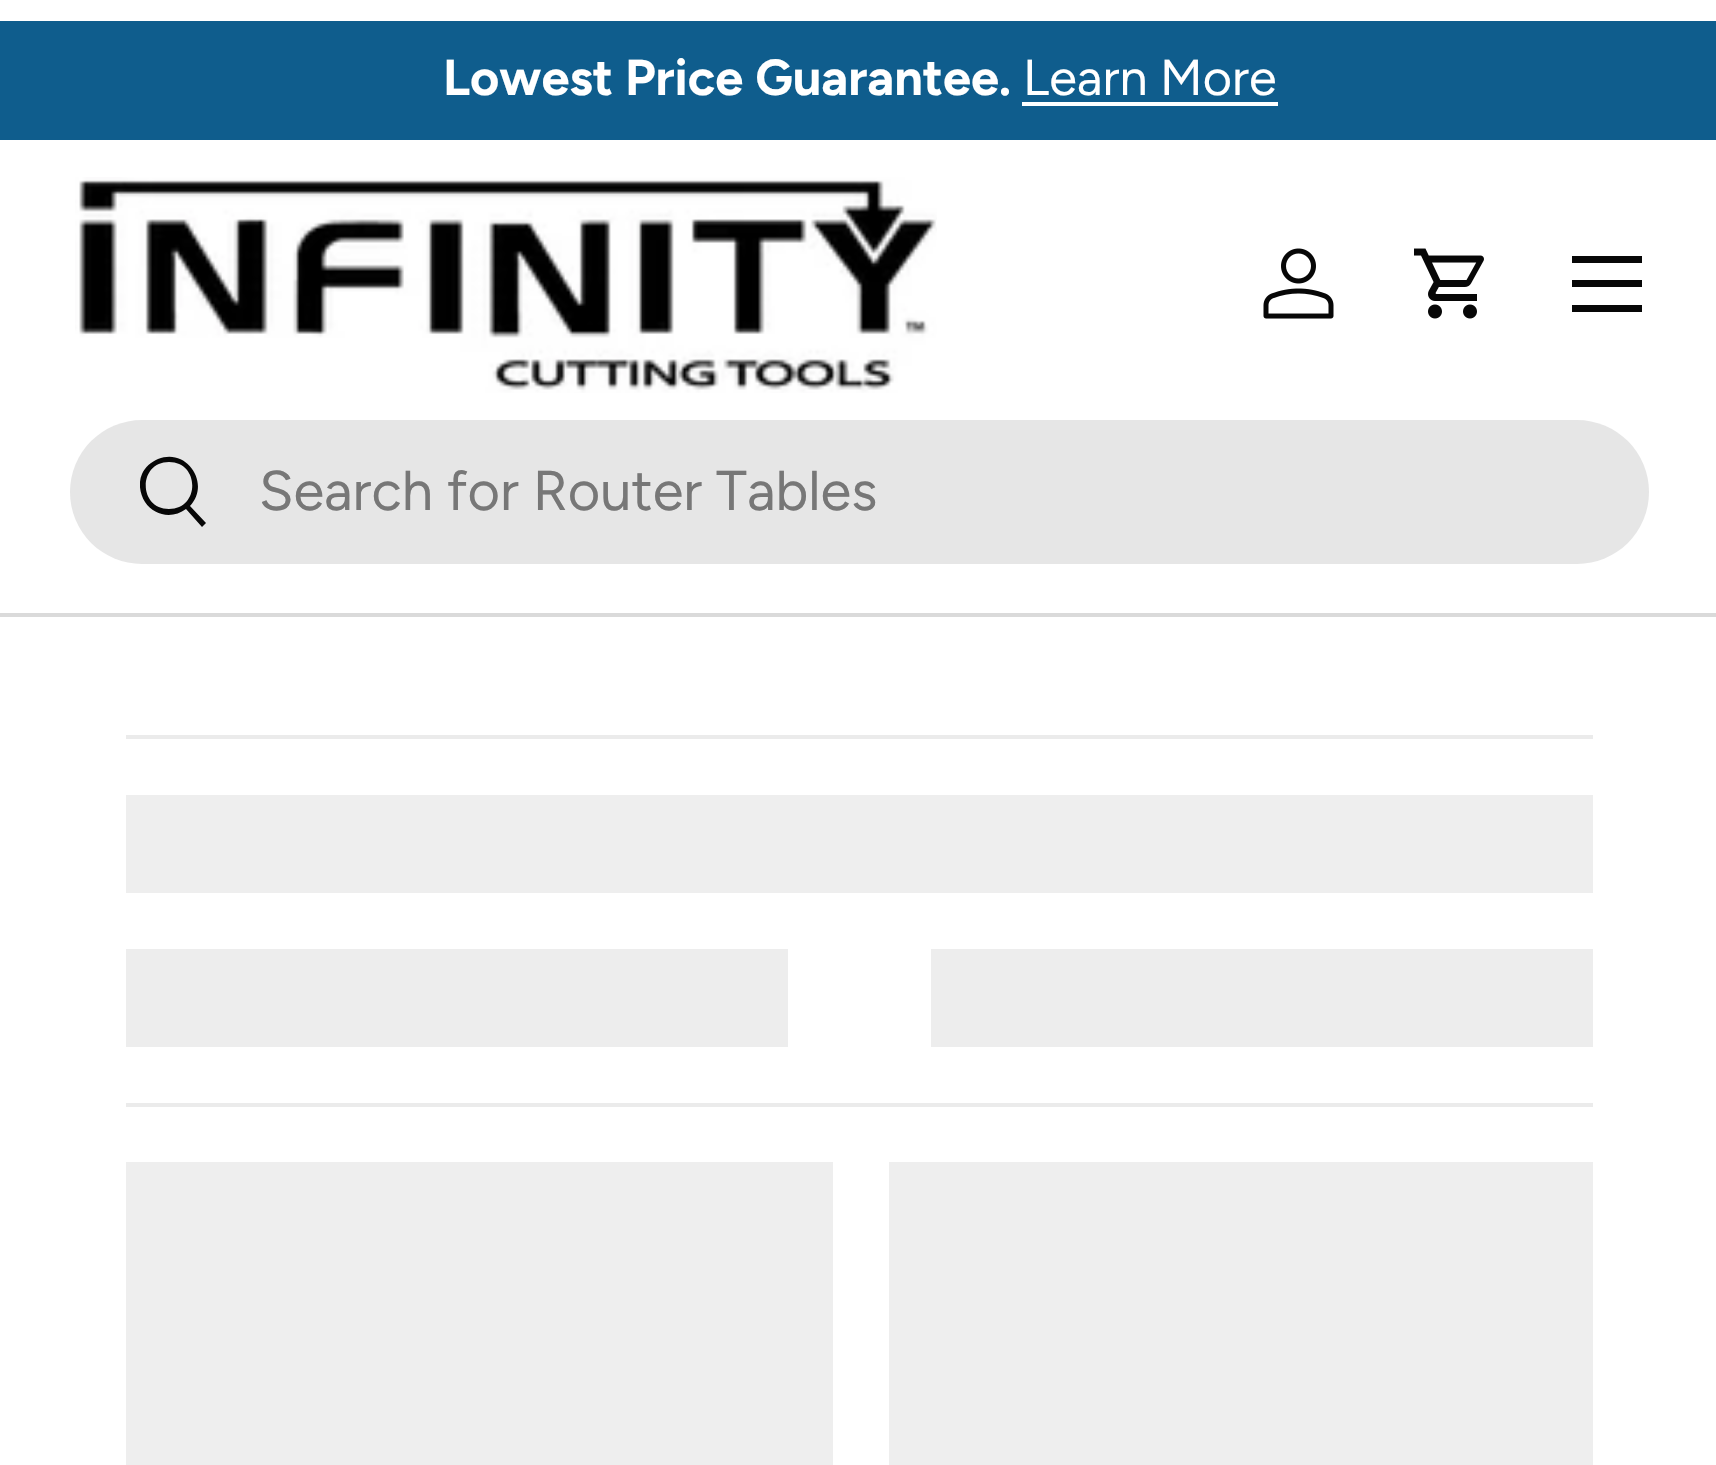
void draw(SkCanvas* canvas) {
    SkPaint paint;
    paint.setAntiAlias(true);
    auto face = [&](const char* family, int weight, float size, bool italic = false) {
        SkFontStyle style(weight, SkFontStyle::kNormal_Width,
            italic ? SkFontStyle::kItalic_Slant : SkFontStyle::kUpright_Slant);
        SkFont result(fontMgr->matchFamilyStyle(family, style), size);
        result.setSubpixel(true);
        return result;
    };
    auto write = [&](const char* s, float x, float y, const SkFont& font, SkColor color) {
        SkPaint ink(SkColor4f::FromColor(color));
        ink.setAntiAlias(true);
        canvas->drawString(s, x, y, font, ink);
    };
    auto block = [&](float x, float y, float w, float h, SkColor color) {
        SkPaint ink(SkColor4f::FromColor(color));
        ink.setAntiAlias(true);
        canvas->drawRect(SkRect::MakeXYWH(x, y, w, h), ink);
    };
    auto card = [&](float x, float y, float w, float h, float radius, SkColor color) {
        SkPaint ink(SkColor4f::FromColor(color));
        ink.setAntiAlias(true);
        canvas->drawRoundRect(SkRect::MakeXYWH(x, y, w, h), radius, radius, ink);
    };
    auto paste = [&](const char* path, float x, float y, float w, float h) {
        auto image = SkImages::DeferredFromEncodedData(SkData::MakeFromFileName(path));
        canvas->drawImageRect(image, SkRect::MakeXYWH(x, y, w, h), SkSamplingOptions());
    };
    canvas->clear(SK_ColorWHITE);
    block(0, 21, 1716, 119, SkColorSetRGB(15, 93, 141));
    auto kFont1 = face("Figtree", 700, 50.4f);
    write("Lowest Price Guarantee.", 443, 95, kFont1, SK_ColorWHITE);
    auto kFont2 = face("Figtree", 400, 50.4f);
    write("Learn More", 1023, 95, kFont2, SK_ColorWHITE);
    block(1022, 102, 256, 4, SK_ColorWHITE);
    block(0, 613, 1716, 4, SkColorSetRGB(218, 218, 218));
    paste("pic1.png", 75, 177, 862, 216);
    paste("pic2.png", 1263, 248, 71, 71);
    paste("pic3.png", 1414, 248, 70, 71);
    block(1572, 256, 70, 7, SkColorSetRGB(7, 7, 7));
    block(1572, 305, 70, 7, SkColorSetRGB(7, 7, 7));
    block(1572, 280, 70, 7, SkColorSetRGB(7, 7, 7));
    card(70, 420, 1579, 144, 72, SkColorSetRGB(230, 230, 230));
    canvas->save();
    canvas->clipRect(SkRect::MakeXYWH(140, 455, 74, 81));
    paint.setColor(SkColorSetRGB(7, 7, 7));
    canvas->drawPath(SkPathBuilder().moveTo(190, 506).lineTo(206, 523).lineTo(202, 527).lineTo(186, 509).cubicTo(173, 519, 154, 516, 145, 502).cubicTo(140, 494, 138, 483, 142, 474).cubicTo(145, 467, 151, 462, 158, 459).cubicTo(187, 447, 211, 484, 190, 506).close().moveTo(169, 509).cubicTo(200, 509, 200, 462, 169, 462).cubicTo(138, 462, 138, 509, 169, 509).close().detach(), paint);
    canvas->restore();
    auto kFont3 = face("Figtree", 400, 56);
    write("Search for Router Tables", 259, 510, kFont3, SkColorSetRGB(119, 119, 119));
    block(126, 735, 1467, 4, SkColorSetRGB(235, 235, 235));
    block(126, 1103, 1467, 4, SkColorSetRGB(235, 235, 235));
    block(126, 795, 1467, 98, SkColorSetRGB(238, 238, 238));
    block(126, 949, 662, 98, SkColorSetRGB(237, 237, 237));
    block(931, 949, 662, 98, SkColorSetRGB(237, 237, 237));
    block(126, 1162, 707, 303, SkColorSetRGB(238, 238, 238));
    block(889, 1162, 704, 303, SkColorSetRGB(238, 238, 238));
}
